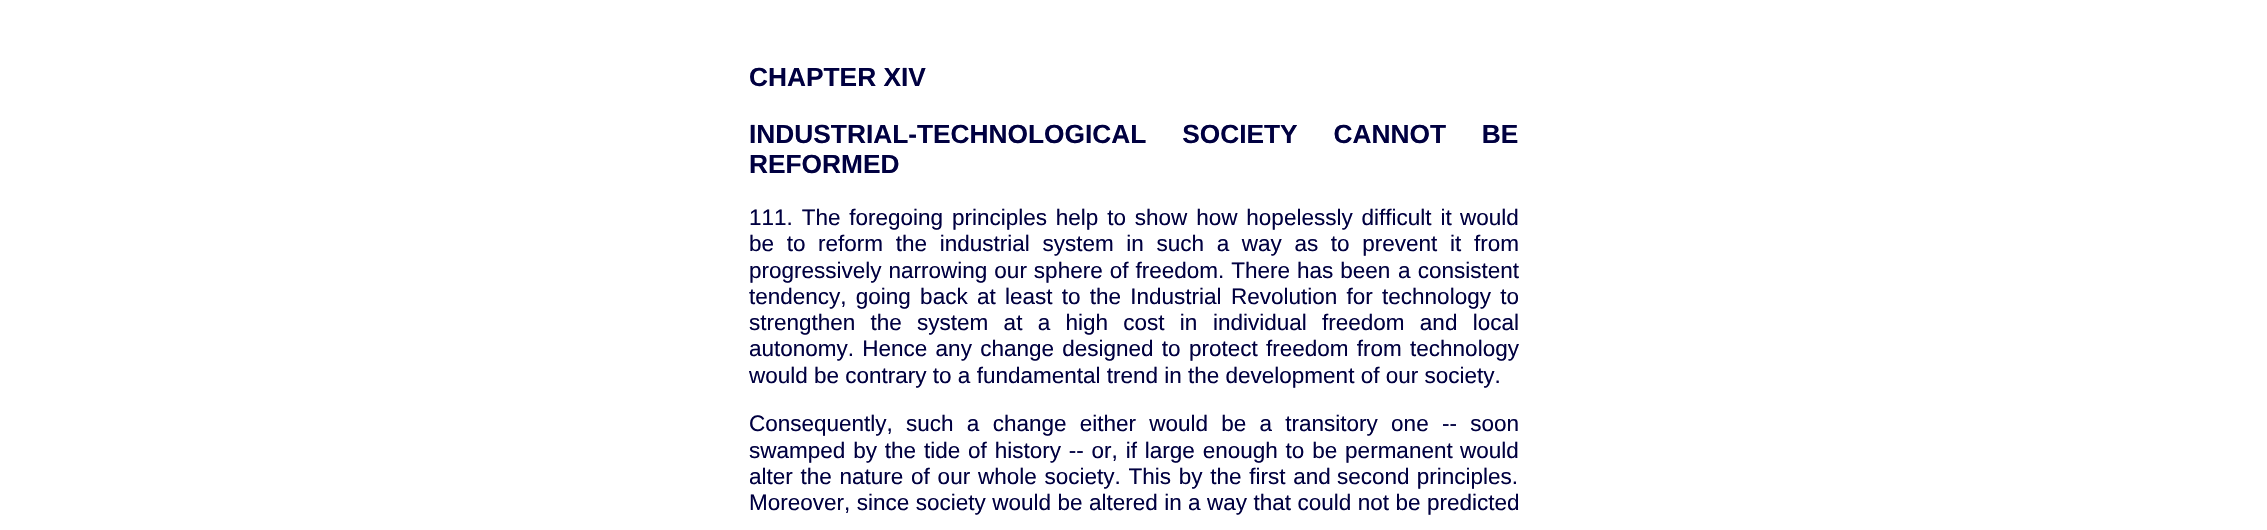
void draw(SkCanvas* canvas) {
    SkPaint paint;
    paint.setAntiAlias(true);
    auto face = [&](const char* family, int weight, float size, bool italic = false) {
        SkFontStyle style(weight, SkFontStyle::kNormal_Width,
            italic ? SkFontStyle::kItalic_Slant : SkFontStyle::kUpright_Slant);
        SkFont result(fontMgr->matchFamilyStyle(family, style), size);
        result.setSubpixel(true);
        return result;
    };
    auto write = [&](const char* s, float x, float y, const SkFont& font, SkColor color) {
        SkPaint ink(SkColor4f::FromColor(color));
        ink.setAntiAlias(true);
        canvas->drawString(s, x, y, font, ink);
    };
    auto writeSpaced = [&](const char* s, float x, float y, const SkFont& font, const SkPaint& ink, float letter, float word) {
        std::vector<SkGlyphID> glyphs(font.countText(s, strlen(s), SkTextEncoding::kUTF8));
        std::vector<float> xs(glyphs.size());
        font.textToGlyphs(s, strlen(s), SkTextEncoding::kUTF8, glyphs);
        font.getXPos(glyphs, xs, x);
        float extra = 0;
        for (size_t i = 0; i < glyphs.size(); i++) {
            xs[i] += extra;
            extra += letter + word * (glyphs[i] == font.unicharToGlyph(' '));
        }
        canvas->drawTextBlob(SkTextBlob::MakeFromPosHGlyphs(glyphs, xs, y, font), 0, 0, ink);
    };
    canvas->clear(SK_ColorWHITE);
    auto kFont1 = face("Liberation Sans", 700, 26.3f);
    write("CHAPTER XIV", 749, 86, kFont1, SkColorSetRGB(0, 0, 64));
    paint.setColor(SkColorSetRGB(0, 0, 64));
    writeSpaced("INDUSTRIAL-TECHNOLOGICAL SOCIETY CANNOT BE", 749, 143, kFont1, paint, 0, 28.5f);
    write("REFORMED", 749, 173, kFont1, SkColorSetRGB(0, 0, 64));
    auto kFont2 = face("Liberation Sans", 400, 22.5f);
    writeSpaced("111. The foregoing principles help to show how hopelessly difficult it", 749, 225, kFont2, paint, 0, 2.6f);
    write("would", 1460, 225, kFont2, SkColorSetRGB(0, 0, 64));
    writeSpaced("be to reform the industrial system in such a way as to prevent", 749, 251, kFont2, paint, 0, 6.4f);
    writeSpaced("it from", 1450, 251, kFont2, paint, 0, 6.4f);
    writeSpaced("progressively narrowing our sphere of freedom. There has been", 749, 278, kFont2, paint, 0, 0.75f);
    writeSpaced("a consistent", 1398, 278, kFont2, paint, 0, 1);
    writeSpaced("tendency, going back at least to the Industrial", 749, 304, kFont2, paint, 0, 3);
    writeSpaced("Revolution for technology to", 1231, 304, kFont2, paint, 0, 3);
    writeSpaced("strengthen the system at a high cost in", 749, 330, kFont2, paint, 0, 9);
    writeSpaced("individual freedom and local", 1213, 330, kFont2, paint, 0, 9);
    writeSpaced("autonomy. Hence any change designed to", 749, 356, kFont2, paint, 0, 2);
    writeSpaced("protect freedom from technology", 1189, 356, kFont2, paint, 0, 2);
    write("would be contrary to a fundamental trend in the development of our society.", 749, 383, kFont2, SkColorSetRGB(0, 0, 64));
    writeSpaced("Consequently, such a change either would be a transitory one -- soon", 749, 431, kFont2, paint, 0, 7);
    writeSpaced("swamped by the tide of history -- or, if large enough to be permanent", 749, 458, kFont2, paint, 0, 1.6f);
    write("would", 1460, 458, kFont2, SkColorSetRGB(0, 0, 64));
    writeSpaced("alter the nature of our whole society. This by the first and", 749, 484, kFont2, paint, 0, 1.5f);
    writeSpaced("second principles.", 1337, 484, kFont2, paint, 0, 1);
    writeSpaced("Moreover, since society would be altered in a way that could not be predicted", 749, 510, kFont2, paint, 0, 0.2f);
}
